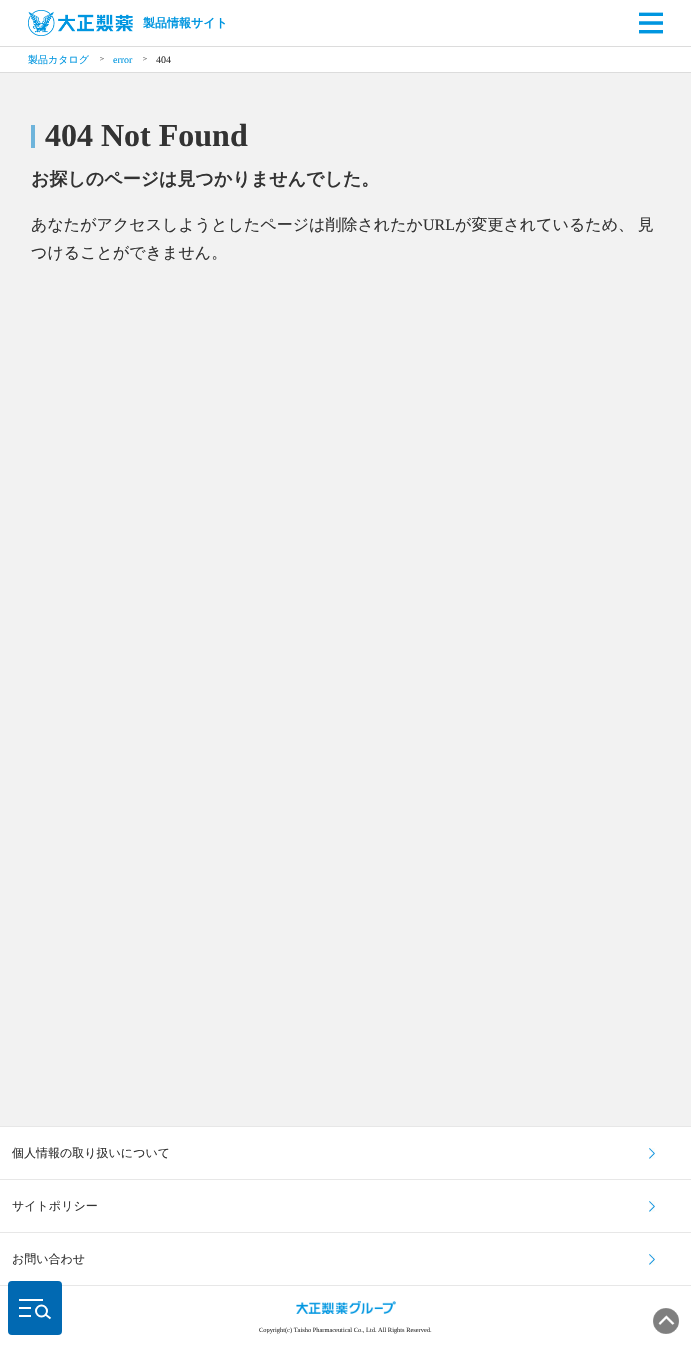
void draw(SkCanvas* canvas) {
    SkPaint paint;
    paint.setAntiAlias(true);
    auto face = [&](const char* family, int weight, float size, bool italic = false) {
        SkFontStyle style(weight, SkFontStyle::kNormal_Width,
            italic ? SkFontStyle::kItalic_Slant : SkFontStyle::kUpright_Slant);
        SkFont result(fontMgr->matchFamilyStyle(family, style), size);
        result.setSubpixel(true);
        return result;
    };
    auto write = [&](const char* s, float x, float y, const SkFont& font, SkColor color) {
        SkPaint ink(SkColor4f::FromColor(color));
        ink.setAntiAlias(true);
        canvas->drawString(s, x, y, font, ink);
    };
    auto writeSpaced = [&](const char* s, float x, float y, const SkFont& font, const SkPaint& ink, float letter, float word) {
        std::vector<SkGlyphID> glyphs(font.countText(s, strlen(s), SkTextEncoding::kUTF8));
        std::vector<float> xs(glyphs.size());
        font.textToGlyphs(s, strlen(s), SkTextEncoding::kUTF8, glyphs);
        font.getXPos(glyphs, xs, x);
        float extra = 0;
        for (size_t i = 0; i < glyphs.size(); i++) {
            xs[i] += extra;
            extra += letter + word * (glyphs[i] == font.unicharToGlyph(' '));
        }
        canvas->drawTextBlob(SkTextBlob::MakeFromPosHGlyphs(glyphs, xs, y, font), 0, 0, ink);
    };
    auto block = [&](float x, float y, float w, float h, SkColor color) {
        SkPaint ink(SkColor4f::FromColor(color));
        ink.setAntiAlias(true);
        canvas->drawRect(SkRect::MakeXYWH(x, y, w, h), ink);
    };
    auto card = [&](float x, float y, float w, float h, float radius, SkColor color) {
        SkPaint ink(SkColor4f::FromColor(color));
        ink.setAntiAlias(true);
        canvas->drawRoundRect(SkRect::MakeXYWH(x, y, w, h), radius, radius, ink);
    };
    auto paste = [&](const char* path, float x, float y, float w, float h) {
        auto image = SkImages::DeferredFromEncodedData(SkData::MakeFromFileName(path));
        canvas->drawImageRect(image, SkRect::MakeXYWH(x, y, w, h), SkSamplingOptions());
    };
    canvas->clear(SK_ColorWHITE);
    block(0, 72, 691, 1, SkColorSetRGB(220, 220, 220));
    paste("pic1.png", 28, 10, 105, 26);
    auto kFont1 = face("WenQuanYi Zen Hei", 700, 12);
    write("製品情報サイト", 143, 27, kFont1, SkColorSetRGB(0, 150, 224));
    paste("pic2.png", 639, 12, 24, 22);
    block(0, 46, 691, 1, SkColorSetRGB(220, 220, 220));
    auto kFont2 = face("WenQuanYi Zen Hei", 500, 10);
    write("製品カタログ", 28, 63, kFont2, SkColorSetRGB(0, 150, 224));
    auto kFont3 = face("WenQuanYi Zen Hei", 500, 8);
    write("＞", 98, 61, kFont3, SkColorSetRGB(102, 102, 102));
    auto kFont4 = face("Liberation Serif", 400, 10);
    write("error", 113, 63, kFont4, SkColorSetRGB(0, 150, 224));
    write("＞", 141, 61, kFont3, SkColorSetRGB(102, 102, 102));
    write("404", 156, 63, kFont4, SkColorSetRGB(51, 51, 51));
    block(0, 73, 691, 1053, SkColorSetRGB(242, 242, 242));
    block(31, 125, 4, 23, SkColorSetRGB(110, 180, 219));
    auto kFont5 = face("Liberation Serif", 700, 32);
    write("404 Not Found", 45, 146, kFont5, SkColorSetRGB(51, 51, 51));
    auto kFont6 = face("WenQuanYi Zen Hei", 700, 18);
    write("お探しのページは見つかりませんでした。", 31, 185, kFont6, SkColorSetRGB(51, 51, 51));
    auto kFont7 = face("WenQuanYi Zen Hei", 500, 16);
    write("あなたがアクセスしようとしたページは削除されたか", 31, 230, kFont7, SkColorSetRGB(51, 51, 51));
    auto kFont8 = face("Liberation Serif", 400, 16);
    write("URL", 423, 230, kFont8, SkColorSetRGB(51, 51, 51));
    paint.setColor(SkColorSetRGB(51, 51, 51));
    writeSpaced("が変更されているため、 見", 455, 230, kFont7, paint, 0, -1);
    write("つけることができません。", 31, 258, kFont7, SkColorSetRGB(51, 51, 51));
    block(0, 1285, 691, 1, SkColorSetRGB(231, 231, 231));
    card(8, 1281, 54, 54, 4, SkColorSetRGB(1, 105, 178));
    block(19, 1299, 24, 2, SK_ColorWHITE);
    block(19, 1307, 12, 2, SK_ColorWHITE);
    block(19, 1315, 12, 2, SK_ColorWHITE);
    paint.setStyle(SkPaint::kStroke_Style);
    paint.setStrokeWidth(2);
    paint.setColor(SK_ColorWHITE);
    canvas->drawCircle(41.5f, 1311, 5.5f, paint);
    canvas->drawPath(SkPathBuilder().moveTo(45.5f, 1314.5f).lineTo(50.5f, 1318.5f).detach(), paint);
    block(0, 1126, 691, 1, SkColorSetRGB(231, 231, 231));
    block(0, 1179, 691, 1, SkColorSetRGB(231, 231, 231));
    auto kFont9 = face("WenQuanYi Zen Hei", 500, 12);
    write("個人情報の取り扱いについて", 12, 1157, kFont9, SkColorSetRGB(51, 51, 51));
    paste("pic3.png", 649, 1148, 6, 11);
    block(0, 1232, 691, 1, SkColorSetRGB(231, 231, 231));
    write("サイトポリシー", 12, 1210, kFont9, SkColorSetRGB(51, 51, 51));
    paste("pic3.png", 649, 1201, 6, 11);
    write("お問い合わせ", 12, 1263, kFont9, SkColorSetRGB(51, 51, 51));
    paste("pic3.png", 649, 1254, 6, 11);
    paste("pic4.png", 296, 1301, 100, 13);
    auto kFont10 = face("Liberation Serif", 400, 6.4f);
    write("Copyright(c) Taisho Pharmaceutical Co., Ltd. All Rights Reserved.", 259, 1332, kFont10, SkColorSetRGB(51, 51, 51));
    paste("pic5.png", 653, 1308, 26, 26);
}
